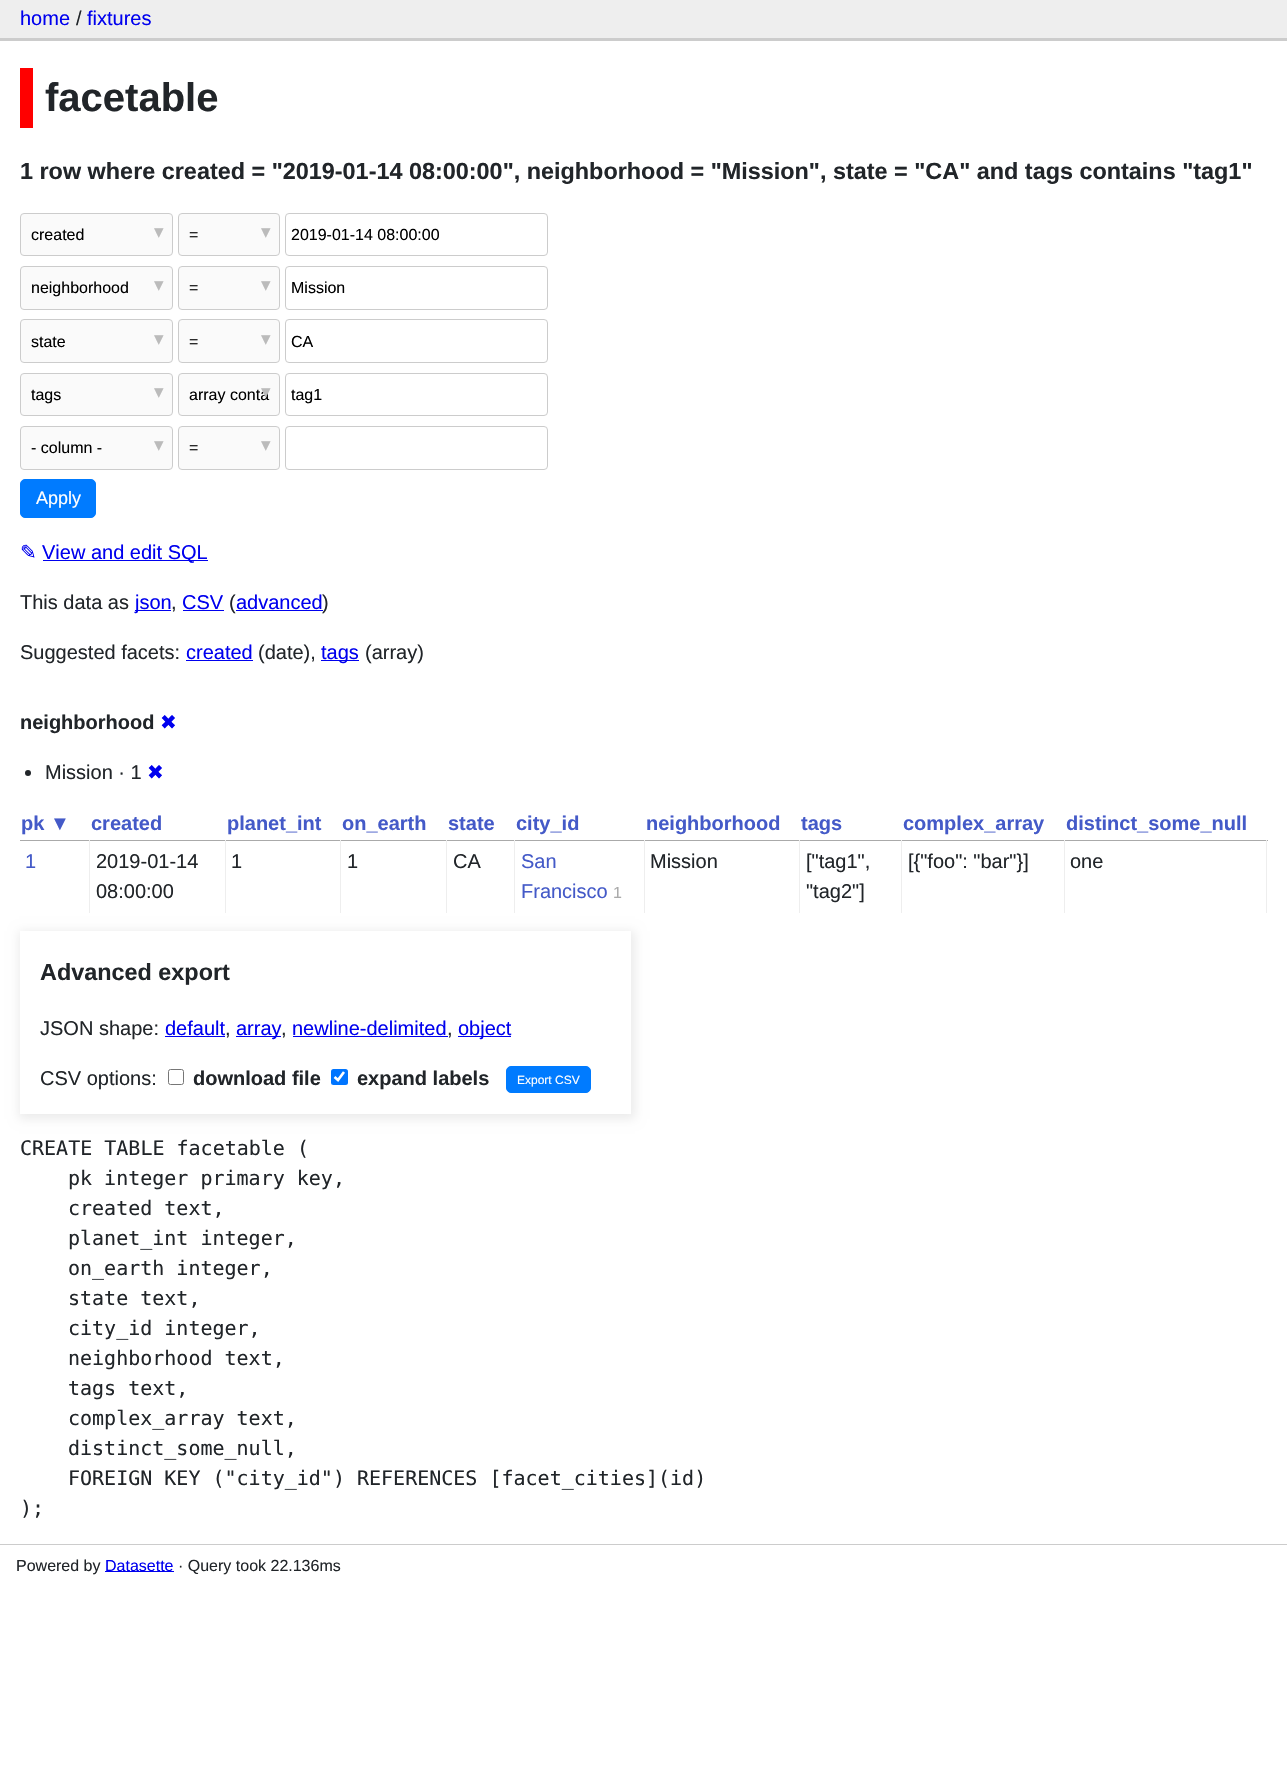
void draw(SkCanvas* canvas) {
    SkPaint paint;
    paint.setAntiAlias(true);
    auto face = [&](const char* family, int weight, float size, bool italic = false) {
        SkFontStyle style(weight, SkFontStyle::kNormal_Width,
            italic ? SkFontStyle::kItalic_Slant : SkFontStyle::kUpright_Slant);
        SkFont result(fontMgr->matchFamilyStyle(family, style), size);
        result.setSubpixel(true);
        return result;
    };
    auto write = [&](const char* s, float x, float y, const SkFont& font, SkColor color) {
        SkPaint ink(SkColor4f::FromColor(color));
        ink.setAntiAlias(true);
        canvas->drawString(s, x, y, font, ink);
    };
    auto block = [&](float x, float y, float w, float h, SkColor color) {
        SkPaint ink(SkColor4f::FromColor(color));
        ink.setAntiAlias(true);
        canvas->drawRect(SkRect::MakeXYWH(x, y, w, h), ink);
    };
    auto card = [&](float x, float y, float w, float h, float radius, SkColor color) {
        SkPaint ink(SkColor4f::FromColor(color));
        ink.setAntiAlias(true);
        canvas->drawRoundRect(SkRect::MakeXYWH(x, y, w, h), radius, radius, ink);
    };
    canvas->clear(SK_ColorWHITE);
    block(0, 0, 1287, 38, SkColorSetRGB(238, 238, 238));
    block(0, 38, 1287, 3, SkColorSetRGB(204, 204, 204));
    auto kFont1 = face("Liberation Sans", 400, 20);
    write("home", 20, 25, kFont1, SkColorSetRGB(0, 0, 238));
    write("/", 76, 25, kFont1, SkColorSetRGB(33, 37, 41));
    write("fixtures", 87, 25, kFont1, SkColorSetRGB(0, 0, 238));
    block(20, 68, 13, 60, SkColorSetRGB(255, 0, 0));
    auto kFont2 = face("Liberation Sans", 700, 40);
    write("facetable", 45, 111, kFont2, SkColorSetRGB(33, 37, 41));
    auto kFont3 = face("Liberation Sans", 700, 23.4f);
    write("1 row where created = \"2019-01-14 08:00:00\", neighborhood = \"Mission\", state = \"CA\" and tags contains \"tag1\"", 20, 179, kFont3, SkColorSetRGB(33, 37, 41));
    paint.setColor(SkColorSetRGB(250, 250, 250));
    canvas->drawRoundRect(SkRect::MakeXYWH(20.5f, 213.5f, 152, 42), 3.5f, 3.5f, paint);
    paint.setStyle(SkPaint::kStroke_Style);
    paint.setStrokeWidth(1);
    paint.setColor(SkColorSetRGB(204, 204, 204));
    canvas->drawRoundRect(SkRect::MakeXYWH(20.5f, 213.5f, 152, 42), 3.5f, 3.5f, paint);
    auto kFont4 = face("Liberation Sans", 400, 16);
    write("created", 31, 240, kFont4, SK_ColorBLACK);
    auto kFont5 = face("DejaVu Sans", 400, 19);
    write("▾", 154, 238, kFont5, SkColorSetRGB(187, 187, 187));
    paint.setStyle(SkPaint::kFill_Style);
    paint.setColor(SkColorSetRGB(250, 250, 250));
    canvas->drawRoundRect(SkRect::MakeXYWH(178.5f, 213.5f, 101, 42), 3.5f, 3.5f, paint);
    paint.setStyle(SkPaint::kStroke_Style);
    paint.setColor(SkColorSetRGB(204, 204, 204));
    canvas->drawRoundRect(SkRect::MakeXYWH(178.5f, 213.5f, 101, 42), 3.5f, 3.5f, paint);
    write("=", 189, 240, kFont4, SK_ColorBLACK);
    write("▾", 261, 238, kFont5, SkColorSetRGB(187, 187, 187));
    canvas->drawRoundRect(SkRect::MakeXYWH(285.5f, 213.5f, 262, 42), 3.5f, 3.5f, paint);
    write("2019-01-14 08:00:00", 291, 240, kFont4, SK_ColorBLACK);
    paint.setStyle(SkPaint::kFill_Style);
    paint.setColor(SkColorSetRGB(250, 250, 250));
    canvas->drawRoundRect(SkRect::MakeXYWH(20.5f, 266.5f, 152, 43), 3.5f, 3.5f, paint);
    paint.setStyle(SkPaint::kStroke_Style);
    paint.setColor(SkColorSetRGB(204, 204, 204));
    canvas->drawRoundRect(SkRect::MakeXYWH(20.5f, 266.5f, 152, 43), 3.5f, 3.5f, paint);
    write("neighborhood", 31, 293, kFont4, SK_ColorBLACK);
    write("▾", 154, 291, kFont5, SkColorSetRGB(187, 187, 187));
    paint.setStyle(SkPaint::kFill_Style);
    paint.setColor(SkColorSetRGB(250, 250, 250));
    canvas->drawRoundRect(SkRect::MakeXYWH(178.5f, 266.5f, 101, 43), 3.5f, 3.5f, paint);
    paint.setStyle(SkPaint::kStroke_Style);
    paint.setColor(SkColorSetRGB(204, 204, 204));
    canvas->drawRoundRect(SkRect::MakeXYWH(178.5f, 266.5f, 101, 43), 3.5f, 3.5f, paint);
    write("=", 189, 293, kFont4, SK_ColorBLACK);
    write("▾", 261, 291, kFont5, SkColorSetRGB(187, 187, 187));
    canvas->drawRoundRect(SkRect::MakeXYWH(285.5f, 266.5f, 262, 43), 3.5f, 3.5f, paint);
    write("Mission", 291, 293, kFont4, SK_ColorBLACK);
    paint.setStyle(SkPaint::kFill_Style);
    paint.setColor(SkColorSetRGB(250, 250, 250));
    canvas->drawRoundRect(SkRect::MakeXYWH(20.5f, 319.5f, 152, 43), 3.5f, 3.5f, paint);
    paint.setStyle(SkPaint::kStroke_Style);
    paint.setColor(SkColorSetRGB(204, 204, 204));
    canvas->drawRoundRect(SkRect::MakeXYWH(20.5f, 319.5f, 152, 43), 3.5f, 3.5f, paint);
    write("state", 31, 347, kFont4, SK_ColorBLACK);
    write("▾", 154, 345, kFont5, SkColorSetRGB(187, 187, 187));
    paint.setStyle(SkPaint::kFill_Style);
    paint.setColor(SkColorSetRGB(250, 250, 250));
    canvas->drawRoundRect(SkRect::MakeXYWH(178.5f, 319.5f, 101, 43), 3.5f, 3.5f, paint);
    paint.setStyle(SkPaint::kStroke_Style);
    paint.setColor(SkColorSetRGB(204, 204, 204));
    canvas->drawRoundRect(SkRect::MakeXYWH(178.5f, 319.5f, 101, 43), 3.5f, 3.5f, paint);
    write("=", 189, 347, kFont4, SK_ColorBLACK);
    write("▾", 261, 345, kFont5, SkColorSetRGB(187, 187, 187));
    canvas->drawRoundRect(SkRect::MakeXYWH(285.5f, 319.5f, 262, 43), 3.5f, 3.5f, paint);
    write("CA", 291, 347, kFont4, SK_ColorBLACK);
    paint.setStyle(SkPaint::kFill_Style);
    paint.setColor(SkColorSetRGB(250, 250, 250));
    canvas->drawRoundRect(SkRect::MakeXYWH(20.5f, 373.5f, 152, 42), 3.5f, 3.5f, paint);
    paint.setStyle(SkPaint::kStroke_Style);
    paint.setColor(SkColorSetRGB(204, 204, 204));
    canvas->drawRoundRect(SkRect::MakeXYWH(20.5f, 373.5f, 152, 42), 3.5f, 3.5f, paint);
    write("tags", 31, 400, kFont4, SK_ColorBLACK);
    write("▾", 154, 398, kFont5, SkColorSetRGB(187, 187, 187));
    paint.setStyle(SkPaint::kFill_Style);
    paint.setColor(SkColorSetRGB(250, 250, 250));
    canvas->drawRoundRect(SkRect::MakeXYWH(178.5f, 373.5f, 101, 42), 3.5f, 3.5f, paint);
    paint.setStyle(SkPaint::kStroke_Style);
    paint.setColor(SkColorSetRGB(204, 204, 204));
    canvas->drawRoundRect(SkRect::MakeXYWH(178.5f, 373.5f, 101, 42), 3.5f, 3.5f, paint);
    write("array conta", 189, 400, kFont4, SK_ColorBLACK);
    write("▾", 261, 398, kFont5, SkColorSetRGB(187, 187, 187));
    canvas->drawRoundRect(SkRect::MakeXYWH(285.5f, 373.5f, 262, 42), 3.5f, 3.5f, paint);
    write("tag1", 291, 400, kFont4, SK_ColorBLACK);
    paint.setStyle(SkPaint::kFill_Style);
    paint.setColor(SkColorSetRGB(250, 250, 250));
    canvas->drawRoundRect(SkRect::MakeXYWH(20.5f, 426.5f, 152, 43), 3.5f, 3.5f, paint);
    paint.setStyle(SkPaint::kStroke_Style);
    paint.setColor(SkColorSetRGB(204, 204, 204));
    canvas->drawRoundRect(SkRect::MakeXYWH(20.5f, 426.5f, 152, 43), 3.5f, 3.5f, paint);
    write("- column -", 31, 453, kFont4, SK_ColorBLACK);
    write("▾", 154, 451, kFont5, SkColorSetRGB(187, 187, 187));
    paint.setStyle(SkPaint::kFill_Style);
    paint.setColor(SkColorSetRGB(250, 250, 250));
    canvas->drawRoundRect(SkRect::MakeXYWH(178.5f, 426.5f, 101, 43), 3.5f, 3.5f, paint);
    paint.setStyle(SkPaint::kStroke_Style);
    paint.setColor(SkColorSetRGB(204, 204, 204));
    canvas->drawRoundRect(SkRect::MakeXYWH(178.5f, 426.5f, 101, 43), 3.5f, 3.5f, paint);
    write("=", 189, 453, kFont4, SK_ColorBLACK);
    write("▾", 261, 451, kFont5, SkColorSetRGB(187, 187, 187));
    canvas->drawRoundRect(SkRect::MakeXYWH(285.5f, 426.5f, 262, 43), 3.5f, 3.5f, paint);
    paint.setStyle(SkPaint::kFill_Style);
    paint.setColor(SkColorSetRGB(0, 123, 255));
    canvas->drawRoundRect(SkRect::MakeXYWH(20.5f, 479.5f, 75, 38), 4.5f, 4.5f, paint);
    paint.setStyle(SkPaint::kStroke_Style);
    canvas->drawRoundRect(SkRect::MakeXYWH(20.5f, 479.5f, 75, 38), 4.5f, 4.5f, paint);
    auto kFont6 = face("Liberation Sans", 400, 18);
    write("Apply", 36, 504, kFont6, SK_ColorWHITE);
    auto kFont7 = face("DejaVu Sans", 400, 20);
    write("✎", 20, 559, kFont7, SkColorSetRGB(0, 0, 238));
    block(43, 560, 165, 1, SkColorSetRGB(0, 0, 238));
    write("View and edit SQL", 42, 559, kFont1, SkColorSetRGB(0, 0, 238));
    write("This data as", 20, 609, kFont1, SkColorSetRGB(33, 37, 41));
    block(135, 610, 36, 1, SkColorSetRGB(0, 0, 238));
    write("json", 135, 609, kFont1, SkColorSetRGB(0, 0, 238));
    write(",", 171, 609, kFont1, SkColorSetRGB(33, 37, 41));
    write("CSV", 182, 609, kFont1, SkColorSetRGB(0, 0, 238));
    block(183, 610, 41, 1, SkColorSetRGB(0, 0, 238));
    write("(", 229, 609, kFont1, SkColorSetRGB(33, 37, 41));
    write("advanced", 236, 609, kFont1, SkColorSetRGB(0, 0, 238));
    block(236, 610, 87, 1, SkColorSetRGB(0, 0, 238));
    write(")", 322, 609, kFont1, SkColorSetRGB(33, 37, 41));
    write("Suggested facets:", 20, 659, kFont1, SkColorSetRGB(33, 37, 41));
    write("created", 186, 659, kFont1, SkColorSetRGB(0, 0, 238));
    block(186, 660, 67, 1, SkColorSetRGB(0, 0, 238));
    write("(date),", 258, 659, kFont1, SkColorSetRGB(33, 37, 41));
    block(321, 660, 38, 1, SkColorSetRGB(0, 0, 238));
    write("tags", 321, 659, kFont1, SkColorSetRGB(0, 0, 238));
    write("(array)", 365, 659, kFont1, SkColorSetRGB(33, 37, 41));
    auto kFont8 = face("Liberation Sans", 700, 20);
    write("neighborhood", 20, 729, kFont8, SkColorSetRGB(33, 37, 41));
    write("✖", 160, 729, kFont7, SkColorSetRGB(0, 0, 238));
    paint.setStyle(SkPaint::kFill_Style);
    paint.setColor(SkColorSetRGB(33, 37, 41));
    canvas->drawCircle(28, 773, 3, paint);
    write("Mission · 1", 45, 779, kFont1, SkColorSetRGB(33, 37, 41));
    write("✖", 147, 779, kFont7, SkColorSetRGB(0, 0, 238));
    write("pk ▼", 21, 830, kFont8, SkColorSetRGB(68, 90, 200));
    write("created", 91, 830, kFont8, SkColorSetRGB(68, 90, 200));
    write("planet_int", 227, 830, kFont8, SkColorSetRGB(68, 90, 200));
    write("on_earth", 342, 830, kFont8, SkColorSetRGB(68, 90, 200));
    write("state", 448, 830, kFont8, SkColorSetRGB(68, 90, 200));
    write("city_id", 516, 830, kFont8, SkColorSetRGB(68, 90, 200));
    write("neighborhood", 646, 830, kFont8, SkColorSetRGB(68, 90, 200));
    write("tags", 801, 830, kFont8, SkColorSetRGB(68, 90, 200));
    write("complex_array", 903, 830, kFont8, SkColorSetRGB(68, 90, 200));
    write("distinct_some_null", 1066, 830, kFont8, SkColorSetRGB(68, 90, 200));
    block(20, 840, 1248, 1, SkColorSetRGB(170, 170, 170));
    block(89, 840, 1, 73, SkColorSetRGB(238, 238, 238));
    write("1", 25, 868, kFont1, SkColorSetRGB(68, 90, 200));
    block(225, 840, 1, 73, SkColorSetRGB(238, 238, 238));
    write("2019-01-14", 96, 868, kFont1, SkColorSetRGB(33, 37, 41));
    write("08:00:00", 96, 898, kFont1, SkColorSetRGB(33, 37, 41));
    block(340, 840, 1, 73, SkColorSetRGB(238, 238, 238));
    write("1", 231, 868, kFont1, SkColorSetRGB(33, 37, 41));
    block(446, 840, 1, 73, SkColorSetRGB(238, 238, 238));
    write("1", 347, 868, kFont1, SkColorSetRGB(33, 37, 41));
    block(514, 840, 1, 73, SkColorSetRGB(238, 238, 238));
    write("CA", 453, 868, kFont1, SkColorSetRGB(33, 37, 41));
    block(644, 840, 1, 73, SkColorSetRGB(238, 238, 238));
    write("San", 521, 868, kFont1, SkColorSetRGB(68, 90, 200));
    write("Francisco", 521, 898, kFont1, SkColorSetRGB(68, 90, 200));
    write("1", 613, 898, kFont4, SkColorSetRGB(170, 170, 170));
    block(799, 840, 1, 73, SkColorSetRGB(238, 238, 238));
    write("Mission", 650, 868, kFont1, SkColorSetRGB(33, 37, 41));
    block(901, 840, 1, 73, SkColorSetRGB(238, 238, 238));
    write("[\"tag1\",", 806, 868, kFont1, SkColorSetRGB(33, 37, 41));
    write("\"tag2\"]", 806, 898, kFont1, SkColorSetRGB(33, 37, 41));
    block(1064, 840, 1, 73, SkColorSetRGB(238, 238, 238));
    write("[{\"foo\": \"bar\"}]", 908, 868, kFont1, SkColorSetRGB(33, 37, 41));
    block(1266, 840, 1, 73, SkColorSetRGB(238, 238, 238));
    write("one", 1070, 868, kFont1, SkColorSetRGB(33, 37, 41));
    canvas->save();
    canvas->clipPath(SkPathBuilder(SkPathFillType::kEvenOdd).moveTo(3, 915).lineTo(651, 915).lineTo(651, 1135).lineTo(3, 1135).close().moveTo(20, 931).lineTo(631, 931).lineTo(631, 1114).lineTo(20, 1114).close().detach(), true);
    paint.setColor(SkColorSetARGB(20, 0, 0, 0));
    paint.setMaskFilter(SkMaskFilter::MakeBlur(kNormal_SkBlurStyle, 5));
    canvas->drawRect(SkRect::MakeXYWH(19, 931, 616, 188), paint);
    paint.setMaskFilter(nullptr);
    canvas->restore();
    write("Advanced export", 40, 980, kFont3, SkColorSetRGB(33, 37, 41));
    write("JSON shape:", 40, 1035, kFont1, SkColorSetRGB(33, 37, 41));
    write("default", 165, 1035, kFont1, SkColorSetRGB(0, 0, 238));
    block(165, 1036, 60, 1, SkColorSetRGB(0, 0, 238));
    write(",", 225, 1035, kFont1, SkColorSetRGB(33, 37, 41));
    block(236, 1036, 45, 1, SkColorSetRGB(0, 0, 238));
    write("array", 236, 1035, kFont1, SkColorSetRGB(0, 0, 238));
    write(",", 281, 1035, kFont1, SkColorSetRGB(33, 37, 41));
    write("newline-delimited", 292, 1035, kFont1, SkColorSetRGB(0, 0, 238));
    block(293, 1036, 155, 1, SkColorSetRGB(0, 0, 238));
    write(",", 447, 1035, kFont1, SkColorSetRGB(33, 37, 41));
    block(458, 1036, 53, 1, SkColorSetRGB(0, 0, 238));
    write("object", 458, 1035, kFont1, SkColorSetRGB(0, 0, 238));
    write("CSV options:", 40, 1085, kFont1, SkColorSetRGB(33, 37, 41));
    paint.setStyle(SkPaint::kStroke_Style);
    paint.setColor(SkColorSetRGB(118, 118, 118));
    canvas->drawRoundRect(SkRect::MakeXYWH(168.5f, 1069.5f, 15, 15), 2, 2, paint);
    write("download file", 193, 1085, kFont8, SkColorSetRGB(33, 37, 41));
    card(331, 1069, 17, 16, 2.5f, SkColorSetRGB(0, 117, 255));
    paint.setStrokeWidth(2.6f);
    paint.setColor(SK_ColorWHITE);
    canvas->drawPath(SkPathBuilder().moveTo(334.5f, 1077).lineTo(338, 1080).lineTo(344, 1072).detach(), paint);
    write("expand labels", 357, 1085, kFont8, SkColorSetRGB(33, 37, 41));
    paint.setStyle(SkPaint::kFill_Style);
    paint.setColor(SkColorSetRGB(0, 123, 255));
    canvas->drawRoundRect(SkRect::MakeXYWH(506.5f, 1066.5f, 84, 26), 4.5f, 4.5f, paint);
    paint.setStyle(SkPaint::kStroke_Style);
    paint.setStrokeWidth(1);
    canvas->drawRoundRect(SkRect::MakeXYWH(506.5f, 1066.5f, 84, 26), 4.5f, 4.5f, paint);
    auto kFont9 = face("Liberation Sans", 400, 12);
    write("Export CSV", 517, 1084, kFont9, SK_ColorWHITE);
    auto kFont10 = face("DejaVu Sans Mono", 400, 20);
    write("CREATE TABLE facetable (", 20, 1155, kFont10, SkColorSetRGB(33, 37, 41));
    write("pk integer primary key,", 68, 1185, kFont10, SkColorSetRGB(33, 37, 41));
    write("created text,", 68, 1215, kFont10, SkColorSetRGB(33, 37, 41));
    write("planet_int integer,", 68, 1245, kFont10, SkColorSetRGB(33, 37, 41));
    write("on_earth integer,", 68, 1275, kFont10, SkColorSetRGB(33, 37, 41));
    write("state text,", 68, 1305, kFont10, SkColorSetRGB(33, 37, 41));
    write("city_id integer,", 68, 1335, kFont10, SkColorSetRGB(33, 37, 41));
    write("neighborhood text,", 68, 1365, kFont10, SkColorSetRGB(33, 37, 41));
    write("tags text,", 68, 1395, kFont10, SkColorSetRGB(33, 37, 41));
    write("complex_array text,", 68, 1425, kFont10, SkColorSetRGB(33, 37, 41));
    write("distinct_some_null,", 68, 1455, kFont10, SkColorSetRGB(33, 37, 41));
    write("FOREIGN KEY (\"city_id\") REFERENCES [facet_cities](id)", 68, 1485, kFont10, SkColorSetRGB(33, 37, 41));
    write(");", 20, 1515, kFont10, SkColorSetRGB(33, 37, 41));
    block(0, 1544, 1287, 1, SkColorSetRGB(204, 204, 204));
    write("Powered by", 16, 1571, kFont4, SkColorSetRGB(33, 37, 41));
    block(105, 1571, 69, 1, SkColorSetRGB(0, 0, 238));
    write("Datasette", 105, 1571, kFont4, SkColorSetRGB(0, 0, 238));
    write("· Query took 22.136ms", 178, 1571, kFont4, SkColorSetRGB(33, 37, 41));
}
